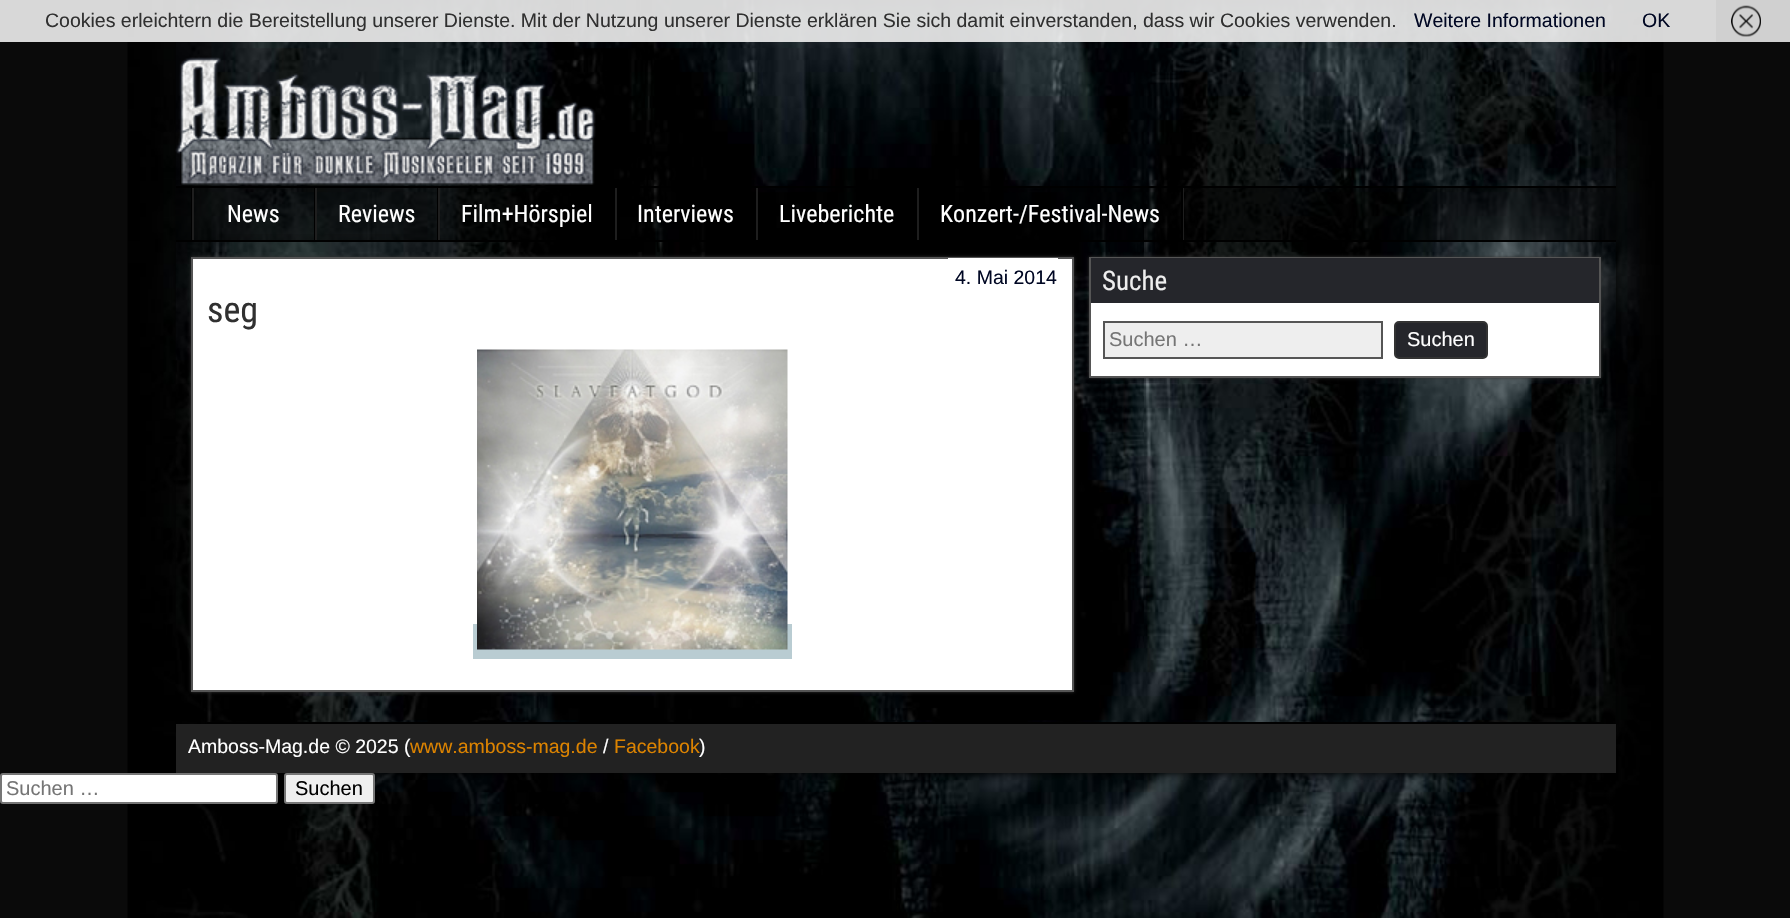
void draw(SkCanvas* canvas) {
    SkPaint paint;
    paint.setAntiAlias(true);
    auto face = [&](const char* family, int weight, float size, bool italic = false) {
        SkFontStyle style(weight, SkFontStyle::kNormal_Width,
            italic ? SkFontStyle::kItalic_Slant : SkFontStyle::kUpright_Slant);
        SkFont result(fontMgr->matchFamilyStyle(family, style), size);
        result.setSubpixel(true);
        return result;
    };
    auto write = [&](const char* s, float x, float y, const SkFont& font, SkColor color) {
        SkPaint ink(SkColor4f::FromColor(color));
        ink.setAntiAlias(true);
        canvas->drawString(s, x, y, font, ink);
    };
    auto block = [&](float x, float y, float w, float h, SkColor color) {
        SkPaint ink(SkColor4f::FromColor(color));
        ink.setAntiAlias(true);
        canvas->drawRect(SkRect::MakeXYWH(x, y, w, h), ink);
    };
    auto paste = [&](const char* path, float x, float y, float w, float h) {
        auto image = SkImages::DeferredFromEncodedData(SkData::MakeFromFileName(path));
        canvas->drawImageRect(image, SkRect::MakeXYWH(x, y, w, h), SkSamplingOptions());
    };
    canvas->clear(SkColorSetRGB(10, 10, 10));
    paste("pic1.png", 127, 0, 1537, 918);
    canvas->save();
    canvas->clipPath(SkPathBuilder(SkPathFillType::kEvenOdd).moveTo(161, 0).lineTo(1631, 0).lineTo(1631, 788).lineTo(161, 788).close().moveTo(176, 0).lineTo(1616, 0).lineTo(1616, 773).lineTo(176, 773).close().detach(), true);
    paint.setColor(SK_ColorBLACK);
    paint.setMaskFilter(SkMaskFilter::MakeBlur(kNormal_SkBlurStyle, 4.5f));
    canvas->drawRect(SkRect::MakeXYWH(176, 0, 1440, 773), paint);
    paint.setMaskFilter(nullptr);
    canvas->restore();
    block(0, 0, 1716, 42, SkColorSetARGB(230, 238, 238, 238));
    auto kFont1 = face("Liberation Sans", 400, 19.5f);
    write("Cookies erleichtern die Bereitstellung unserer Dienste. Mit der Nutzung unserer Dienste erklären Sie sich damit einverstanden, dass wir Cookies verwenden.", 45, 27, kFont1, SkColorSetRGB(48, 48, 48));
    write("Weitere Informationen", 1414, 27, kFont1, SkColorSetRGB(0, 7, 35));
    write("OK", 1642, 27, kFont1, SkColorSetRGB(0, 7, 35));
    block(1716, 0, 74, 42, SkColorSetRGB(208, 208, 208));
    paste("pic2.png", 1731, 5, 30, 32);
    block(176, 186, 1440, 2, SK_ColorBLACK);
    paste("pic3.png", 175, 57, 421, 129);
    block(176, 188, 1440, 52, SkColorSetARGB(128, 0, 0, 0));
    block(176, 240, 1440, 2, SK_ColorBLACK);
    block(1183, 188, 1, 52, SkColorSetRGB(30, 30, 30));
    block(191, 188, 1, 52, SK_ColorBLACK);
    {
        const SkColor colors[] = {SkColorSetARGB(0, 0, 0, 0), SkColorSetARGB(38, 0, 0, 0)};
        const float stops[] = {0.7f, 1};
        const SkPoint ends[] = {{254, 188}, {254, 240}};
        paint.setShader(SkGradientShader::MakeLinear(ends, colors, stops, 2, SkTileMode::kClamp));
        paint.setAlpha(255);
    }
    canvas->drawRect(SkRect::MakeXYWH(217, 234, 97, 6), paint);
    block(314, 188, 1, 52, SK_ColorBLACK);
    block(192, 188, 2, 52, SkColorSetRGB(30, 30, 30));
    auto kFont2 = face("Roboto Condensed", 400, 24);
    write("News", 227, 222, kFont2, SK_ColorWHITE);
    {
        const SkColor colors[] = {SkColorSetARGB(0, 0, 0, 0), SkColorSetARGB(38, 0, 0, 0)};
        const float stops[] = {0.7f, 1};
        const SkPoint ends[] = {{377, 188}, {377, 240}};
        paint.setShader(SkGradientShader::MakeLinear(ends, colors, stops, 2, SkTileMode::kClamp));
        paint.setAlpha(255);
    }
    canvas->drawRect(SkRect::MakeXYWH(317, 234, 119, 6), paint);
    block(437, 188, 1, 52, SK_ColorBLACK);
    block(315, 188, 2, 52, SkColorSetRGB(30, 30, 30));
    write("Reviews", 338, 222, kFont2, SK_ColorWHITE);
    {
        const SkColor colors[] = {SkColorSetARGB(0, 0, 0, 0), SkColorSetARGB(38, 0, 0, 0)};
        const float stops[] = {0.7f, 1};
        const SkPoint ends[] = {{527, 188}, {527, 240}};
        paint.setShader(SkGradientShader::MakeLinear(ends, colors, stops, 2, SkTileMode::kClamp));
        paint.setAlpha(255);
    }
    canvas->drawRect(SkRect::MakeXYWH(440, 238, 14, 2), paint);
    block(438, 188, 2, 52, SkColorSetRGB(30, 30, 30));
    write("Film+Hörspiel", 461, 222, kFont2, SK_ColorWHITE);
    block(615, 188, 2, 52, SkColorSetRGB(30, 30, 30));
    write("Interviews", 637, 222, kFont2, SK_ColorWHITE);
    block(756, 188, 2, 52, SkColorSetRGB(30, 30, 30));
    write("Liveberichte", 779, 222, kFont2, SK_ColorWHITE);
    {
        const SkColor colors[] = {SkColorSetARGB(0, 0, 0, 0), SkColorSetARGB(38, 0, 0, 0)};
        const float stops[] = {0.7f, 1};
        const SkPoint ends[] = {{1049, 187}, {1049, 240}};
        paint.setShader(SkGradientShader::MakeLinear(ends, colors, stops, 2, SkTileMode::kClamp));
        paint.setAlpha(255);
    }
    canvas->drawRect(SkRect::MakeXYWH(1146, 239, 1, 1), paint);
    block(1181, 188, 2, 52, SK_ColorBLACK);
    block(917, 188, 2, 52, SkColorSetRGB(30, 30, 30));
    write("Konzert-/Festival-News", 940, 222, kFont2, SK_ColorWHITE);
    paint.setShader(nullptr);
    paint.setColor(SkColorSetRGB(51, 51, 51));
    paint.setMaskFilter(SkMaskFilter::MakeBlur(kNormal_SkBlurStyle, 1.5f));
    canvas->drawRect(SkRect::MakeXYWH(191, 257, 883, 435), paint);
    paint.setMaskFilter(nullptr);
    paint.setColor(SK_ColorWHITE);
    canvas->drawRect(SkRect::MakeXYWH(192, 258, 881, 433), paint);
    paint.setStyle(SkPaint::kStroke_Style);
    paint.setStrokeWidth(2);
    paint.setColor(SkColorSetRGB(85, 85, 85));
    canvas->drawRect(SkRect::MakeXYWH(192, 258, 881, 433), paint);
    block(948, 258, 110, 1, SK_ColorWHITE);
    write("4. Mai 2014", 955, 284, kFont1, SkColorSetRGB(0, 7, 35));
    auto kFont3 = face("Roboto Condensed", 400, 36);
    write("seg", 207, 322, kFont3, SkColorSetRGB(48, 48, 48));
    block(473, 624, 319, 35, SkColorSetRGB(185, 204, 210));
    paste("pic4.png", 477, 349, 311, 301);
    paint.setStyle(SkPaint::kFill_Style);
    paint.setColor(SkColorSetRGB(51, 51, 51));
    paint.setMaskFilter(SkMaskFilter::MakeBlur(kNormal_SkBlurStyle, 1.5f));
    canvas->drawRect(SkRect::MakeXYWH(1089, 257, 512, 121), paint);
    paint.setMaskFilter(nullptr);
    block(1091, 303, 508, 73, SK_ColorWHITE);
    paint.setStyle(SkPaint::kStroke_Style);
    paint.setColor(SkColorSetRGB(85, 85, 85));
    canvas->drawRect(SkRect::MakeXYWH(1090, 258, 510, 119), paint);
    block(1091, 258, 508, 45, SkColorSetRGB(37, 38, 43));
    auto kFont4 = face("Roboto Condensed", 400, 27);
    write("Suche", 1102, 290, kFont4, SkColorSetRGB(238, 238, 238));
    paint.setStyle(SkPaint::kFill_Style);
    paint.setColor(SkColorSetRGB(238, 238, 238));
    canvas->drawRect(SkRect::MakeXYWH(1104, 322, 278, 36), paint);
    paint.setStyle(SkPaint::kStroke_Style);
    paint.setColor(SkColorSetRGB(85, 85, 85));
    canvas->drawRect(SkRect::MakeXYWH(1104, 322, 278, 36), paint);
    auto kFont5 = face("Liberation Sans", 400, 20);
    write("Suchen …", 1109, 346, kFont5, SkColorSetRGB(117, 117, 117));
    paint.setStyle(SkPaint::kFill_Style);
    paint.setColor(SkColorSetRGB(37, 38, 43));
    canvas->drawRoundRect(SkRect::MakeXYWH(1395, 322, 92, 36), 4, 4, paint);
    paint.setStyle(SkPaint::kStroke_Style);
    paint.setColor(SkColorSetRGB(51, 51, 51));
    canvas->drawRoundRect(SkRect::MakeXYWH(1395, 322, 92, 36), 4, 4, paint);
    write("Suchen", 1407, 346, kFont5, SK_ColorWHITE);
    block(176, 724, 1440, 49, SkColorSetRGB(34, 34, 34));
    block(207, 722, 1394, 2, SK_ColorBLACK);
    write("Amboss-Mag.de © 2025 (", 188, 753, kFont1, SK_ColorWHITE);
    write("www.amboss-mag.de", 410, 753, kFont1, SkColorSetRGB(220, 131, 0));
    write("/", 603, 753, kFont1, SK_ColorWHITE);
    write("Facebook", 614, 753, kFont1, SkColorSetRGB(220, 131, 0));
    write(")", 699, 753, kFont1, SK_ColorWHITE);
    paint.setStyle(SkPaint::kFill_Style);
    paint.setColor(SK_ColorWHITE);
    canvas->drawRoundRect(SkRect::MakeXYWH(1, 774, 276, 29), 2, 2, paint);
    paint.setStyle(SkPaint::kStroke_Style);
    paint.setColor(SkColorSetRGB(118, 118, 118));
    canvas->drawRoundRect(SkRect::MakeXYWH(1, 774, 276, 29), 2, 2, paint);
    write("Suchen …", 6, 795, kFont5, SkColorSetRGB(117, 117, 117));
    paint.setStyle(SkPaint::kFill_Style);
    paint.setColor(SkColorSetRGB(239, 239, 239));
    canvas->drawRoundRect(SkRect::MakeXYWH(285, 774, 89, 29), 2, 2, paint);
    paint.setStyle(SkPaint::kStroke_Style);
    paint.setColor(SkColorSetRGB(118, 118, 118));
    canvas->drawRoundRect(SkRect::MakeXYWH(285, 774, 89, 29), 2, 2, paint);
    write("Suchen", 295, 795, kFont5, SK_ColorBLACK);
}
